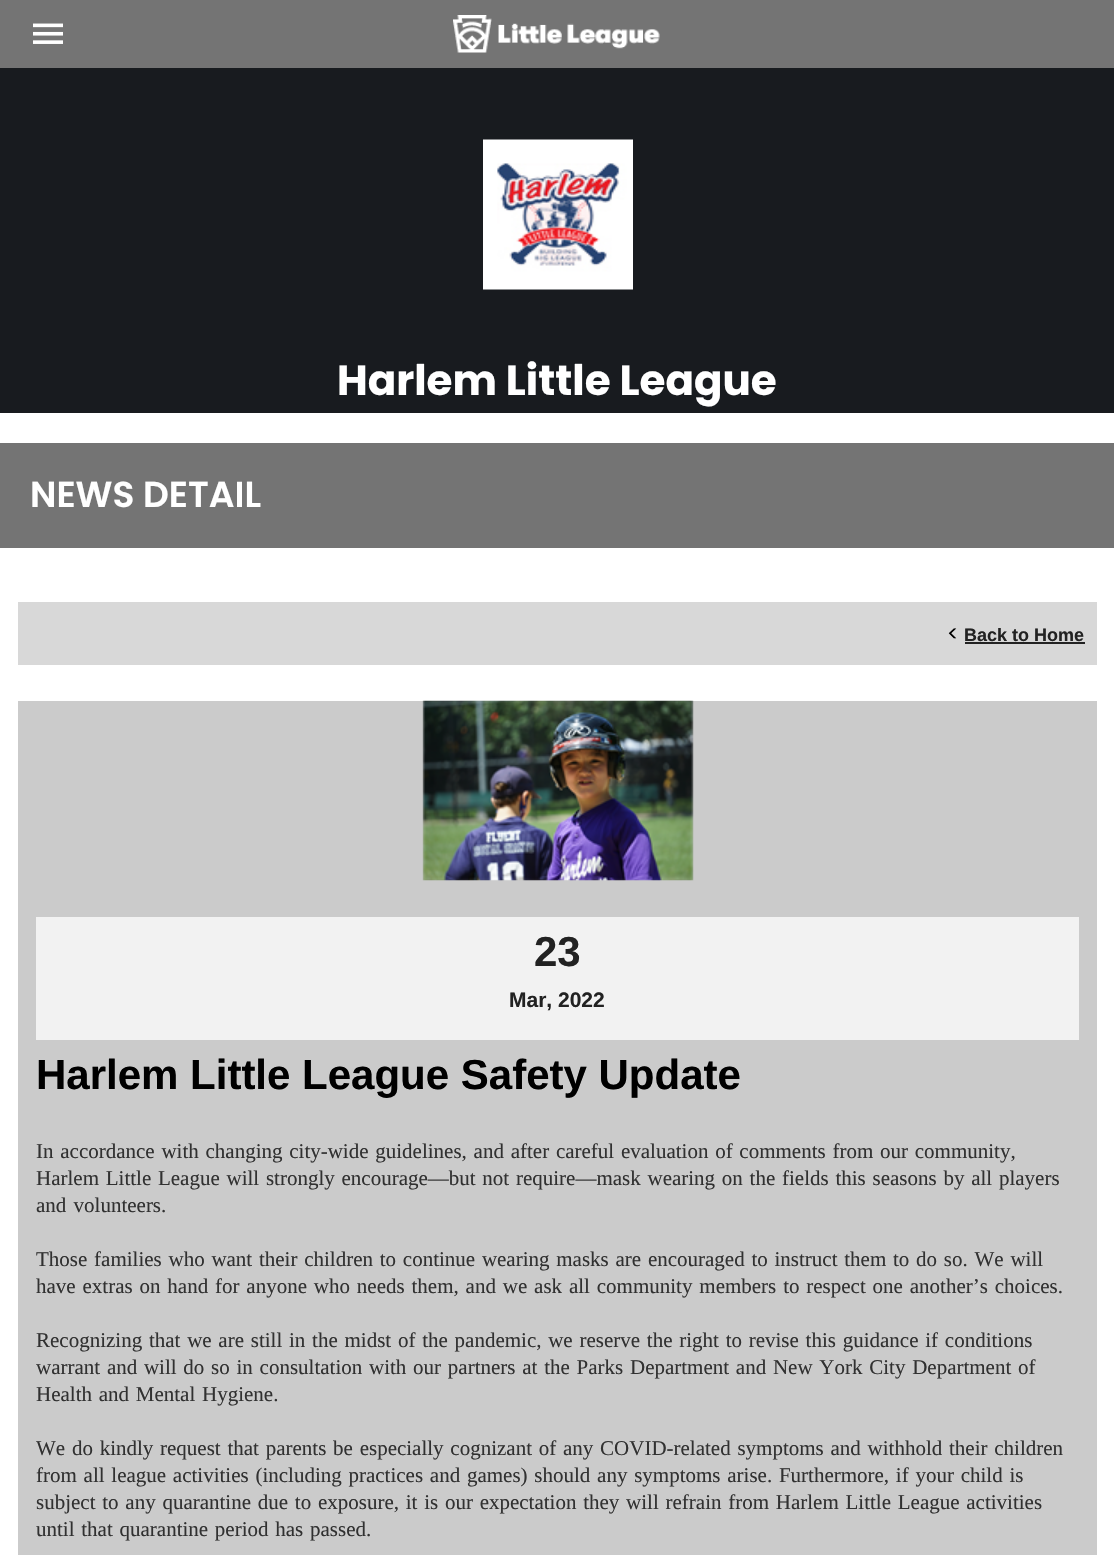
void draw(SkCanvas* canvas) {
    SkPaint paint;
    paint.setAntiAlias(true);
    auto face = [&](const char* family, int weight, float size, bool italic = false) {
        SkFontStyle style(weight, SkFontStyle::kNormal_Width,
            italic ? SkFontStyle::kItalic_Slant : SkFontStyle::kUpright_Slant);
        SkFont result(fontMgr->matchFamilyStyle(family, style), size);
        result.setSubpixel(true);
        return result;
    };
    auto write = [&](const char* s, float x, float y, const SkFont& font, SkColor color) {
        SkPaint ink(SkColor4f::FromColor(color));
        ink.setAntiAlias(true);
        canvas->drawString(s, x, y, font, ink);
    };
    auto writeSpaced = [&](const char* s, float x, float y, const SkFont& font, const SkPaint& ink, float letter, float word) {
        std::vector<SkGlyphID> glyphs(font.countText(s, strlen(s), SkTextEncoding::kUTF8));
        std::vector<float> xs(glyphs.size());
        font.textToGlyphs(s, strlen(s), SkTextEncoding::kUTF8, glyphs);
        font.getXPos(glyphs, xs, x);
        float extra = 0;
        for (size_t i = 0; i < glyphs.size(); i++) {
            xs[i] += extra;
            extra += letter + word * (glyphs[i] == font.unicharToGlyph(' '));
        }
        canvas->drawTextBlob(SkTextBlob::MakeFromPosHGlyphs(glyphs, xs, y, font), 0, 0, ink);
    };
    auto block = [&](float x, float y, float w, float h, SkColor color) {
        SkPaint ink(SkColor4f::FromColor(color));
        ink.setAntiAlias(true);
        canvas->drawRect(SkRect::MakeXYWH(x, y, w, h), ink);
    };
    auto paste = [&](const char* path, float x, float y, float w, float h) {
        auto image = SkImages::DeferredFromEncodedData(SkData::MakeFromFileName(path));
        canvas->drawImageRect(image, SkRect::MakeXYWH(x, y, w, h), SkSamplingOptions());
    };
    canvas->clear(SkColorSetRGB(24, 27, 31));
    block(0, 0, 1114, 68, SkColorSetRGB(116, 116, 116));
    paste("pic1.png", 33, 23, 30, 21);
    paste("pic2.png", 453, 15, 207, 38);
    paste("pic3.png", 483, 139, 150, 151);
    auto kFont1 = face("Poppins", 700, 42);
    write("Harlem Little League", 337, 395, kFont1, SK_ColorWHITE);
    block(0, 413, 1114, 1142, SK_ColorWHITE);
    block(0, 443, 1114, 105, SkColorSetRGB(116, 116, 116));
    auto kFont2 = face("Poppins", 600, 36);
    write("NEWS DETAIL", 30, 507, kFont2, SK_ColorWHITE);
    block(18, 602, 1079, 63, SkColorSetRGB(216, 216, 216));
    auto kFont3 = face("Poppins", 400, 21);
    write("<", 947, 641, kFont3, SK_ColorBLACK);
    auto kFont4 = face("Liberation Sans", 700, 18);
    write("Back to Home", 964, 641, kFont4, SkColorSetRGB(34, 34, 34));
    block(965, 642, 120, 2, SkColorSetRGB(34, 34, 34));
    block(18, 701, 1079, 854, SkColorSetRGB(203, 203, 203));
    paste("pic4.png", 422, 700, 272, 181);
    block(36, 917, 1043, 123, SkColorSetRGB(242, 242, 242));
    auto kFont5 = face("Liberation Sans", 700, 42);
    write("23", 534, 966, kFont5, SkColorSetRGB(34, 34, 34));
    auto kFont6 = face("Liberation Sans", 700, 21);
    write("Mar, 2022", 509, 1007, kFont6, SkColorSetRGB(34, 34, 34));
    write("Harlem Little League Safety Update", 36, 1089, kFont5, SK_ColorBLACK);
    auto kFont7 = face("Liberation Serif", 400, 21);
    paint.setColor(SkColorSetRGB(49, 49, 49));
    writeSpaced("In accordance with changing city-wide guidelines, and after careful evaluation of comments from our community,", 36, 1158, kFont7, paint, 0, 1.5f);
    writeSpaced("Harlem Little League will strongly encourage—but not require—mask wearing on the fields this seasons by all players", 36, 1185, kFont7, paint, 0, 1.5f);
    writeSpaced("and volunteers.", 36, 1212, kFont7, paint, 0, 2);
    writeSpaced("Those families who want their children to continue wearing masks are encouraged to instruct them to do so. We will", 36, 1266, kFont7, paint, 0, 1.5f);
    writeSpaced("have extras on hand for anyone who needs them, and we ask all community members to respect one another’s choices.", 36, 1293, kFont7, paint, 0, 1.6f);
    writeSpaced("Recognizing that we are still in the midst of the pandemic, we reserve the right to revise this guidance if conditions", 36, 1347, kFont7, paint, 0, 1.5f);
    writeSpaced("warrant and will do so in consultation with our partners at the Parks Department and New York City Department of", 36, 1374, kFont7, paint, 0, 1.5f);
    writeSpaced("Health and Mental Hygiene.", 36, 1401, kFont7, paint, 0, 1.5f);
    writeSpaced("We do kindly request that parents be especially cognizant of any COVID-related symptoms and withhold their children", 36, 1455, kFont7, paint, 0, 1.5f);
    writeSpaced("from all league activities (including practices and games) should any symptoms arise. Furthermore, if your child is", 36, 1482, kFont7, paint, 0, 1.5f);
    writeSpaced("subject to any quarantine due to exposure, it is our expectation they will refrain from Harlem Little League activities", 36, 1509, kFont7, paint, 0, 1.5f);
    writeSpaced("until that quarantine period has passed.", 36, 1536, kFont7, paint, 0, 1.5f);
}
